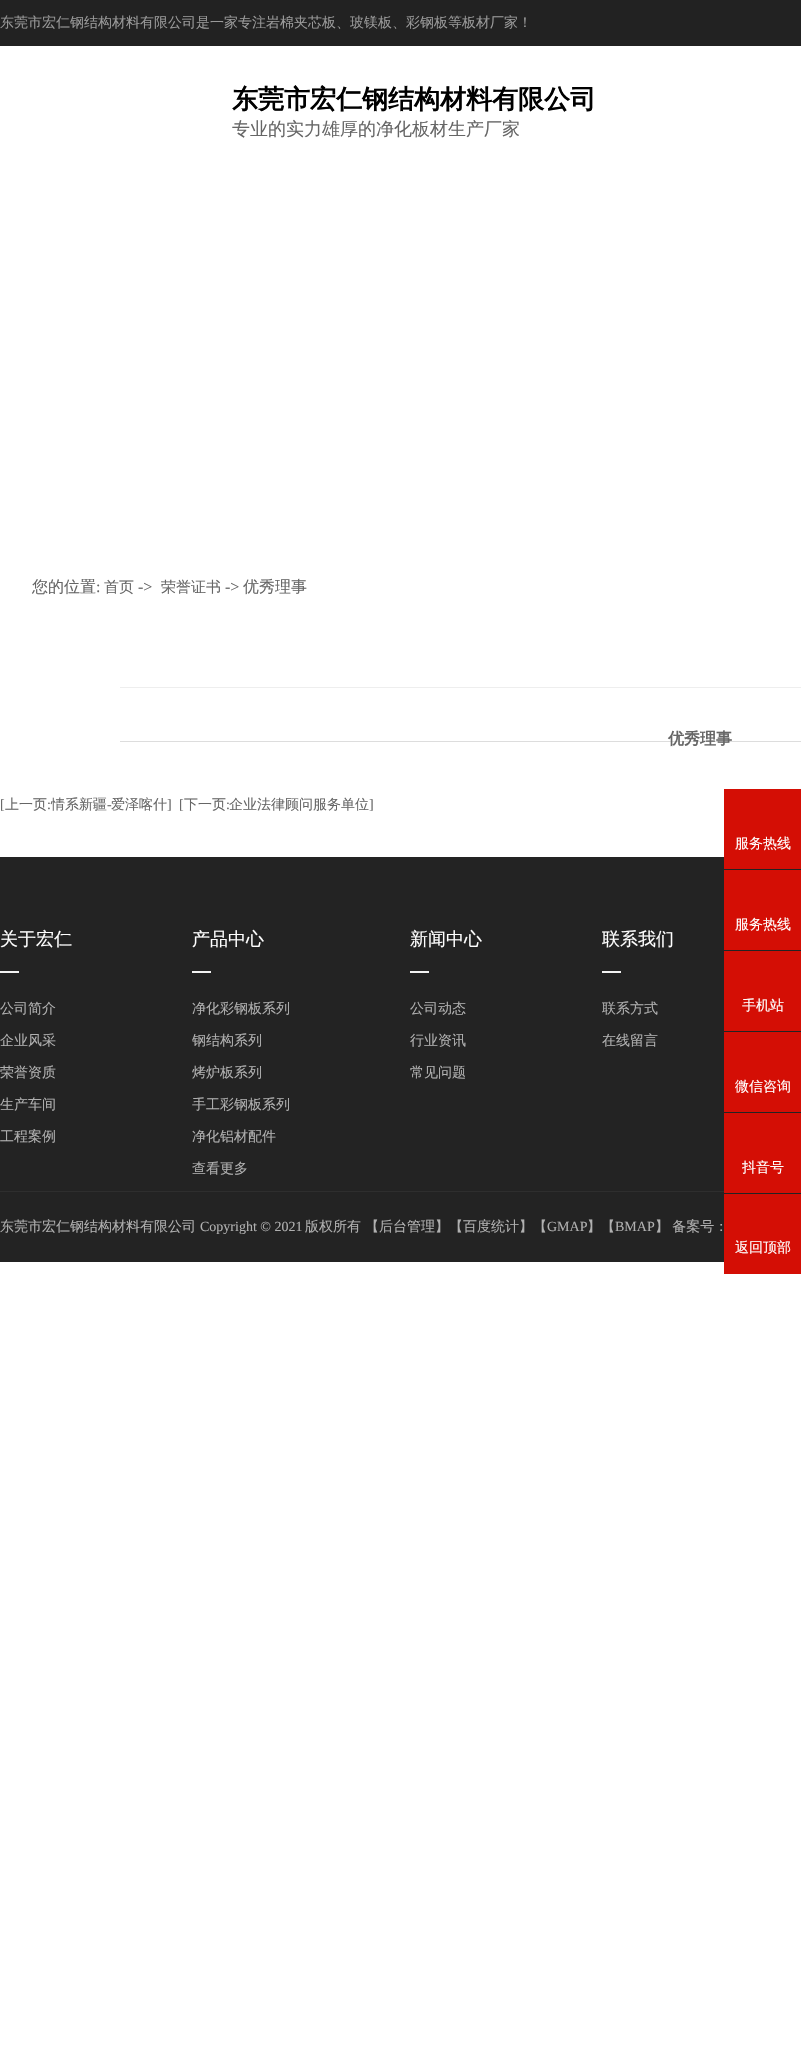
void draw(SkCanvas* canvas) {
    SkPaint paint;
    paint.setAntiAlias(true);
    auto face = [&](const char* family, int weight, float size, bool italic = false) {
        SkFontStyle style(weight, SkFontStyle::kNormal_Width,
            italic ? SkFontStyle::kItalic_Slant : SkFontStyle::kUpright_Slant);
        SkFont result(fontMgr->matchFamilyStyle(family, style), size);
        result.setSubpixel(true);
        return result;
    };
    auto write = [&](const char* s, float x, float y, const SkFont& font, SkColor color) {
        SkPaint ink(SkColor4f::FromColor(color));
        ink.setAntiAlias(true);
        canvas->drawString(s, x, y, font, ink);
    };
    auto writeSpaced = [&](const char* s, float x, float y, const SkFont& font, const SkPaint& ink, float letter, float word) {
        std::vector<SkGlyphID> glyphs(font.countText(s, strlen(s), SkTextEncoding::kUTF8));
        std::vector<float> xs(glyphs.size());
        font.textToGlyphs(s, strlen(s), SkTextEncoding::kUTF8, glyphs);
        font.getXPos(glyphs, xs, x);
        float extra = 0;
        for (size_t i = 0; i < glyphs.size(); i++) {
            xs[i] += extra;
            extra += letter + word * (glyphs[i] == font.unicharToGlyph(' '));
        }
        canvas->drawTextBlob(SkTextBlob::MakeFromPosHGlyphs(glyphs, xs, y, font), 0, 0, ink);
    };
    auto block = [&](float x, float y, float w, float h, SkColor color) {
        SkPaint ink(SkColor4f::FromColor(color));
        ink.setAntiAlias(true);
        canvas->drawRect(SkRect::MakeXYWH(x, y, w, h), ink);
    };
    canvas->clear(SK_ColorWHITE);
    block(0, 0, 801, 46, SkColorSetRGB(34, 34, 34));
    auto kFont1 = face("WenQuanYi Zen Hei", 500, 14);
    write("东莞市宏仁钢结构材料有限公司是一家专注岩棉夹芯板、玻镁板、彩钢板等板材厂家！", 0, 27, kFont1, SkColorSetRGB(153, 153, 153));
    auto kFont2 = face("WenQuanYi Zen Hei", 700, 26);
    write("东莞市宏仁钢结构材料有限公司", 232, 108, kFont2, SK_ColorBLACK);
    auto kFont3 = face("WenQuanYi Zen Hei", 500, 18);
    write("专业的实力雄厚的净化板材生产厂家", 232, 135, kFont3, SkColorSetRGB(102, 102, 102));
    auto kFont4 = face("WenQuanYi Zen Hei", 500, 16);
    write("您的位置", 32, 592, kFont4, SkColorSetRGB(102, 102, 102));
    auto kFont5 = face("Liberation Serif", 400, 16);
    write(":", 96, 592, kFont5, SkColorSetRGB(102, 102, 102));
    auto kFont6 = face("WenQuanYi Zen Hei", 500, 15);
    write("首页", 104, 592, kFont6, SkColorSetRGB(102, 102, 102));
    write("->", 138, 592, kFont5, SkColorSetRGB(102, 102, 102));
    write("荣誉证书", 161, 592, kFont6, SkColorSetRGB(102, 102, 102));
    write("->", 225, 592, kFont5, SkColorSetRGB(102, 102, 102));
    write("优秀理事", 243, 592, kFont4, SkColorSetRGB(102, 102, 102));
    block(120, 687, 681, 1, SkColorSetRGB(238, 238, 238));
    block(120, 741, 681, 1, SkColorSetRGB(221, 221, 221));
    auto kFont7 = face("WenQuanYi Zen Hei", 700, 16);
    write("优秀理事", 668, 744, kFont7, SkColorSetRGB(102, 102, 102));
    auto kFont8 = face("Liberation Serif", 400, 14);
    write("[", 0, 809, kFont8, SkColorSetRGB(102, 102, 102));
    write("上一页", 5, 809, kFont1, SkColorSetRGB(102, 102, 102));
    write(":", 47, 809, kFont8, SkColorSetRGB(102, 102, 102));
    write("情系新疆", 51, 809, kFont1, SkColorSetRGB(102, 102, 102));
    write("-", 107, 809, kFont8, SkColorSetRGB(102, 102, 102));
    write("爱泽喀什", 111, 809, kFont1, SkColorSetRGB(102, 102, 102));
    write("]", 167, 809, kFont8, SkColorSetRGB(102, 102, 102));
    write("[", 179, 809, kFont8, SkColorSetRGB(102, 102, 102));
    write("下一页", 184, 809, kFont1, SkColorSetRGB(102, 102, 102));
    write(":", 226, 809, kFont8, SkColorSetRGB(102, 102, 102));
    write("企业法律顾问服务单位", 229, 809, kFont1, SkColorSetRGB(102, 102, 102));
    write("]", 369, 809, kFont8, SkColorSetRGB(102, 102, 102));
    block(0, 857, 801, 405, SkColorSetRGB(35, 35, 35));
    block(0, 1191, 724, 1, SkColorSetRGB(46, 46, 46));
    write("关于宏仁", 0, 945, kFont3, SK_ColorWHITE);
    block(0, 971, 19, 2, SkColorSetRGB(243, 243, 243));
    write("公司简介", 0, 1013, kFont1, SkColorSetRGB(176, 176, 176));
    write("企业风采", 0, 1045, kFont1, SkColorSetRGB(176, 176, 176));
    write("荣誉资质", 0, 1077, kFont1, SkColorSetRGB(176, 176, 176));
    write("生产车间", 0, 1109, kFont1, SkColorSetRGB(176, 176, 176));
    write("工程案例", 0, 1141, kFont1, SkColorSetRGB(176, 176, 176));
    write("产品中心", 192, 945, kFont3, SK_ColorWHITE);
    block(192, 971, 19, 2, SkColorSetRGB(243, 243, 243));
    write("净化彩钢板系列", 192, 1013, kFont1, SkColorSetRGB(176, 176, 176));
    write("钢结构系列", 192, 1045, kFont1, SkColorSetRGB(176, 176, 176));
    write("烤炉板系列", 192, 1077, kFont1, SkColorSetRGB(176, 176, 176));
    write("手工彩钢板系列", 192, 1109, kFont1, SkColorSetRGB(176, 176, 176));
    write("净化铝材配件", 192, 1141, kFont1, SkColorSetRGB(176, 176, 176));
    write("查看更多", 192, 1173, kFont1, SkColorSetRGB(176, 176, 176));
    write("新闻中心", 410, 945, kFont3, SK_ColorWHITE);
    block(410, 971, 19, 2, SkColorSetRGB(243, 243, 243));
    write("公司动态", 410, 1013, kFont1, SkColorSetRGB(176, 176, 176));
    write("行业资讯", 410, 1045, kFont1, SkColorSetRGB(176, 176, 176));
    write("常见问题", 410, 1077, kFont1, SkColorSetRGB(176, 176, 176));
    write("联系我们", 602, 945, kFont3, SK_ColorWHITE);
    block(602, 971, 19, 2, SkColorSetRGB(243, 243, 243));
    write("联系方式", 602, 1013, kFont1, SkColorSetRGB(176, 176, 176));
    write("在线留言", 602, 1045, kFont1, SkColorSetRGB(176, 176, 176));
    write("东莞市宏仁钢结构材料有限公司", 0, 1231, kFont1, SkColorSetRGB(176, 176, 176));
    write("Copyright © 2021", 200, 1231, kFont8, SkColorSetRGB(176, 176, 176));
    write("版权所有", 305, 1231, kFont1, SkColorSetRGB(176, 176, 176));
    write("【后台管理】【百度统计】【", 365, 1231, kFont1, SkColorSetRGB(176, 176, 176));
    write("GMAP", 547, 1231, kFont8, SkColorSetRGB(176, 176, 176));
    write("】【", 587, 1231, kFont1, SkColorSetRGB(176, 176, 176));
    write("BMAP", 615, 1231, kFont8, SkColorSetRGB(176, 176, 176));
    paint.setColor(SkColorSetRGB(176, 176, 176));
    writeSpaced("】 备案号：", 655, 1231, kFont1, paint, 0, -1);
    block(724, 789, 77, 80, SkColorSetRGB(212, 14, 5));
    write("服务热线", 735, 848, kFont1, SK_ColorWHITE);
    block(724, 870, 77, 80, SkColorSetRGB(212, 14, 5));
    write("服务热线", 735, 929, kFont1, SK_ColorWHITE);
    block(724, 951, 77, 80, SkColorSetRGB(212, 14, 5));
    write("手机站", 742, 1010, kFont1, SK_ColorWHITE);
    block(724, 1032, 77, 80, SkColorSetRGB(212, 14, 5));
    write("微信咨询", 735, 1091, kFont1, SK_ColorWHITE);
    block(724, 1113, 77, 80, SkColorSetRGB(212, 14, 5));
    write("抖音号", 742, 1172, kFont1, SK_ColorWHITE);
    block(724, 1194, 77, 80, SkColorSetRGB(212, 14, 5));
    write("返回顶部", 735, 1252, kFont1, SK_ColorWHITE);
}
